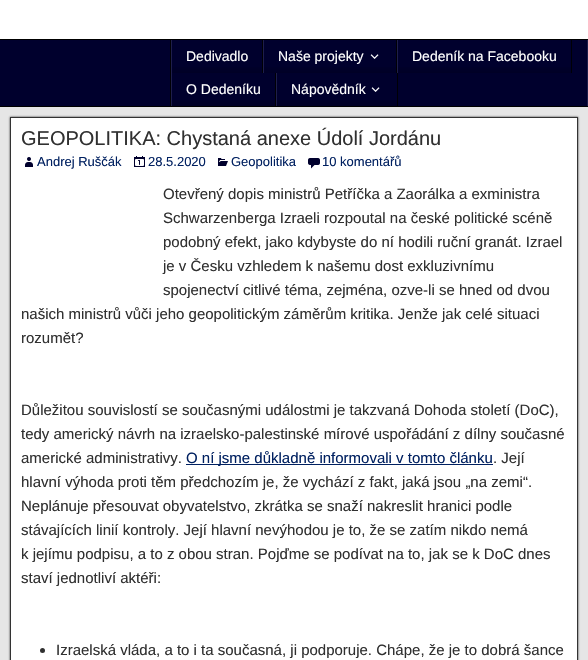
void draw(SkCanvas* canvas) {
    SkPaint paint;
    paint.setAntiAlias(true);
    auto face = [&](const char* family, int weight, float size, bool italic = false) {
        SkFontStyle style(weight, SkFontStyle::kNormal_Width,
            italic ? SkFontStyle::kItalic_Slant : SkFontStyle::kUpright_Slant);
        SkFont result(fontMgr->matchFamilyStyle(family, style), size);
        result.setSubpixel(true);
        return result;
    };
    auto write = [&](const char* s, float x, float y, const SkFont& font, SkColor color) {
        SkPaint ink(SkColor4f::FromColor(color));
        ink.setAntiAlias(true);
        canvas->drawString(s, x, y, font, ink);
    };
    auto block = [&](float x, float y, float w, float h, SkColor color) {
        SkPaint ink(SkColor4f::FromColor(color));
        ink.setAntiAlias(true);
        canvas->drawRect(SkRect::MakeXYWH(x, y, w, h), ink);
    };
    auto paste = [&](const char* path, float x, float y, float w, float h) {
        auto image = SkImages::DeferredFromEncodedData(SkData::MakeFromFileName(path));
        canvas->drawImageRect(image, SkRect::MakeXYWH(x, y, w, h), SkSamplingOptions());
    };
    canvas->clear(SK_ColorWHITE);
    block(0, 39, 588, 1, SK_ColorBLACK);
    block(0, 40, 587, 66, SkColorSetRGB(0, 0, 45));
    block(0, 106, 588, 1, SK_ColorBLACK);
    block(587, 40, 1, 66, SkColorSetRGB(30, 30, 75));
    block(170, 40, 1, 66, SkColorSetRGB(0, 0, 5));
    {
        const SkColor colors[] = {SkColorSetRGB(0, 0, 45), SkColorSetRGB(0, 0, 38)};
        const float stops[] = {0.7f, 1};
        const SkPoint ends[] = {{217, 40}, {217, 73}};
        paint.setShader(SkGradientShader::MakeLinear(ends, colors, stops, 2, SkTileMode::kClamp));
        paint.setAlpha(255);
    }
    canvas->drawRect(SkRect::MakeXYWH(172, 67, 90, 6), paint);
    block(262, 40, 1, 33, SkColorSetRGB(0, 0, 5));
    block(171, 40, 1, 66, SkColorSetRGB(30, 30, 75));
    auto kFont1 = face("Liberation Sans", 400, 14);
    write("Dedivadlo", 186, 61, kFont1, SK_ColorWHITE);
    {
        const SkColor colors[] = {SkColorSetRGB(0, 0, 45), SkColorSetRGB(0, 0, 38)};
        const float stops[] = {0.7f, 1};
        const SkPoint ends[] = {{330, 40}, {330, 73}};
        paint.setShader(SkGradientShader::MakeLinear(ends, colors, stops, 2, SkTileMode::kClamp));
        paint.setAlpha(255);
    }
    canvas->drawRect(SkRect::MakeXYWH(264, 67, 132, 6), paint);
    block(396, 40, 1, 33, SkColorSetRGB(0, 0, 5));
    block(263, 40, 1, 33, SkColorSetRGB(30, 30, 75));
    write("Naše projekty", 278, 61, kFont1, SK_ColorWHITE);
    paste("pic1.png", 370, 54, 9, 5);
    {
        const SkColor colors[] = {SkColorSetRGB(0, 0, 45), SkColorSetRGB(0, 0, 38)};
        const float stops[] = {0.7f, 1};
        const SkPoint ends[] = {{485, 40}, {485, 73}};
        paint.setShader(SkGradientShader::MakeLinear(ends, colors, stops, 2, SkTileMode::kClamp));
        paint.setAlpha(255);
    }
    canvas->drawRect(SkRect::MakeXYWH(398, 67, 173, 6), paint);
    block(571, 40, 1, 33, SkColorSetRGB(0, 0, 5));
    block(397, 40, 1, 33, SkColorSetRGB(30, 30, 75));
    write("Dedeník na Facebooku", 412, 61, kFont1, SK_ColorWHITE);
    {
        const SkColor colors[] = {SkColorSetRGB(0, 0, 45), SkColorSetRGB(0, 0, 38)};
        const float stops[] = {0.7f, 1};
        const SkPoint ends[] = {{224, 73}, {224, 106}};
        paint.setShader(SkGradientShader::MakeLinear(ends, colors, stops, 2, SkTileMode::kClamp));
        paint.setAlpha(255);
    }
    canvas->drawRect(SkRect::MakeXYWH(172, 100, 103, 6), paint);
    block(275, 73, 1, 33, SkColorSetRGB(0, 0, 5));
    write("O Dedeníku", 186, 94, kFont1, SK_ColorWHITE);
    {
        const SkColor colors[] = {SkColorSetRGB(0, 0, 45), SkColorSetRGB(0, 0, 38)};
        const float stops[] = {0.7f, 1};
        const SkPoint ends[] = {{337, 73}, {337, 106}};
        paint.setShader(SkGradientShader::MakeLinear(ends, colors, stops, 2, SkTileMode::kClamp));
        paint.setAlpha(255);
    }
    canvas->drawRect(SkRect::MakeXYWH(277, 100, 120, 6), paint);
    block(397, 73, 1, 33, SkColorSetRGB(0, 0, 5));
    block(276, 73, 1, 33, SkColorSetRGB(30, 30, 75));
    write("Nápovědník", 291, 94, kFont1, SK_ColorWHITE);
    paste("pic1.png", 371, 87, 9, 5);
    block(0, 107, 588, 553, SkColorSetRGB(230, 230, 230));
    paint.setShader(nullptr);
    paint.setColor(SkColorSetRGB(51, 51, 51));
    paint.setMaskFilter(SkMaskFilter::MakeBlur(kNormal_SkBlurStyle, 1));
    canvas->drawRect(SkRect::MakeXYWH(10, 117, 568, 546), paint);
    paint.setMaskFilter(nullptr);
    paint.setColor(SK_ColorWHITE);
    canvas->drawRect(SkRect::MakeXYWH(10.5f, 117.5f, 567, 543), paint);
    paint.setStyle(SkPaint::kStroke_Style);
    paint.setStrokeWidth(1);
    paint.setColor(SkColorSetRGB(51, 51, 51));
    canvas->drawRect(SkRect::MakeXYWH(10.5f, 117.5f, 567, 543), paint);
    auto kFont2 = face("Liberation Sans", 400, 20);
    write("GEOPOLITIKA: Chystaná anexe Údolí Jordánu", 21, 145, kFont2, SkColorSetRGB(48, 48, 48));
    paste("pic2.png", 25, 157, 8, 10);
    auto kFont3 = face("Liberation Sans", 400, 13);
    write("Andrej Ruščák", 37, 166, kFont3, SkColorSetRGB(0, 32, 96));
    paste("pic3.png", 134, 156, 11, 11);
    write("28.5.2020", 148, 166, kFont3, SkColorSetRGB(0, 32, 96));
    paste("pic4.png", 218, 158, 10, 8);
    write("Geopolitika", 231, 166, kFont3, SkColorSetRGB(0, 32, 96));
    paste("pic5.png", 308, 158, 12, 11);
    write("10 komentářů", 322, 166, kFont3, SkColorSetRGB(0, 32, 96));
    auto kFont4 = face("Liberation Sans", 400, 15);
    write("Otevřený dopis ministrů Petříčka a Zaorálka a exministra", 163, 199, kFont4, SkColorSetRGB(48, 48, 48));
    write("Schwarzenberga Izraeli rozpoutal na české politické scéně", 163, 223, kFont4, SkColorSetRGB(48, 48, 48));
    write("podobný efekt, jako kdybyste do ní hodili ruční granát. Izrael", 163, 247, kFont4, SkColorSetRGB(48, 48, 48));
    write("je v Česku vzhledem k našemu dost exkluzivnímu", 163, 271, kFont4, SkColorSetRGB(48, 48, 48));
    write("spojenectví citlivé téma, zejména, ozve-li se hned od dvou", 163, 295, kFont4, SkColorSetRGB(48, 48, 48));
    write("našich ministrů vůči jeho geopolitickým záměrům kritika. Jenže jak celé situaci", 21, 319, kFont4, SkColorSetRGB(48, 48, 48));
    write("rozumět?", 21, 343, kFont4, SkColorSetRGB(48, 48, 48));
    write("Důležitou souvislostí se současnými událostmi je takzvaná Dohoda století (DoC),", 21, 415, kFont4, SkColorSetRGB(48, 48, 48));
    write("tedy americký návrh na izraelsko-palestinské mírové uspořádání z dílny současné", 21, 439, kFont4, SkColorSetRGB(48, 48, 48));
    write("americké administrativy.", 21, 463, kFont4, SkColorSetRGB(48, 48, 48));
    block(186, 464, 307, 1, SkColorSetRGB(0, 32, 96));
    write("O ní jsme důkladně informovali v tomto článku", 186, 463, kFont4, SkColorSetRGB(0, 32, 96));
    write(". Její", 493, 463, kFont4, SkColorSetRGB(48, 48, 48));
    write("hlavní výhoda proti těm předchozím je, že vychází z fakt, jaká jsou „na zemi“.", 21, 487, kFont4, SkColorSetRGB(48, 48, 48));
    write("Neplánuje přesouvat obyvatelstvo, zkrátka se snaží nakreslit hranici podle", 21, 511, kFont4, SkColorSetRGB(48, 48, 48));
    write("stávajících linií kontroly. Její hlavní nevýhodou je to, že se zatím nikdo nemá", 21, 535, kFont4, SkColorSetRGB(48, 48, 48));
    write("k jejímu podpisu, a to z obou stran. Pojďme se podívat na to, jak se k DoC dnes", 21, 559, kFont4, SkColorSetRGB(48, 48, 48));
    write("staví jednotliví aktéři:", 21, 583, kFont4, SkColorSetRGB(48, 48, 48));
    paint.setStyle(SkPaint::kFill_Style);
    paint.setColor(SkColorSetRGB(48, 48, 48));
    canvas->drawCircle(42.5f, 650.5f, 2.5f, paint);
    write("Izraelská vláda, a to i ta současná, ji podporuje. Chápe, že je to dobrá šance", 56, 655, kFont4, SkColorSetRGB(48, 48, 48));
}
